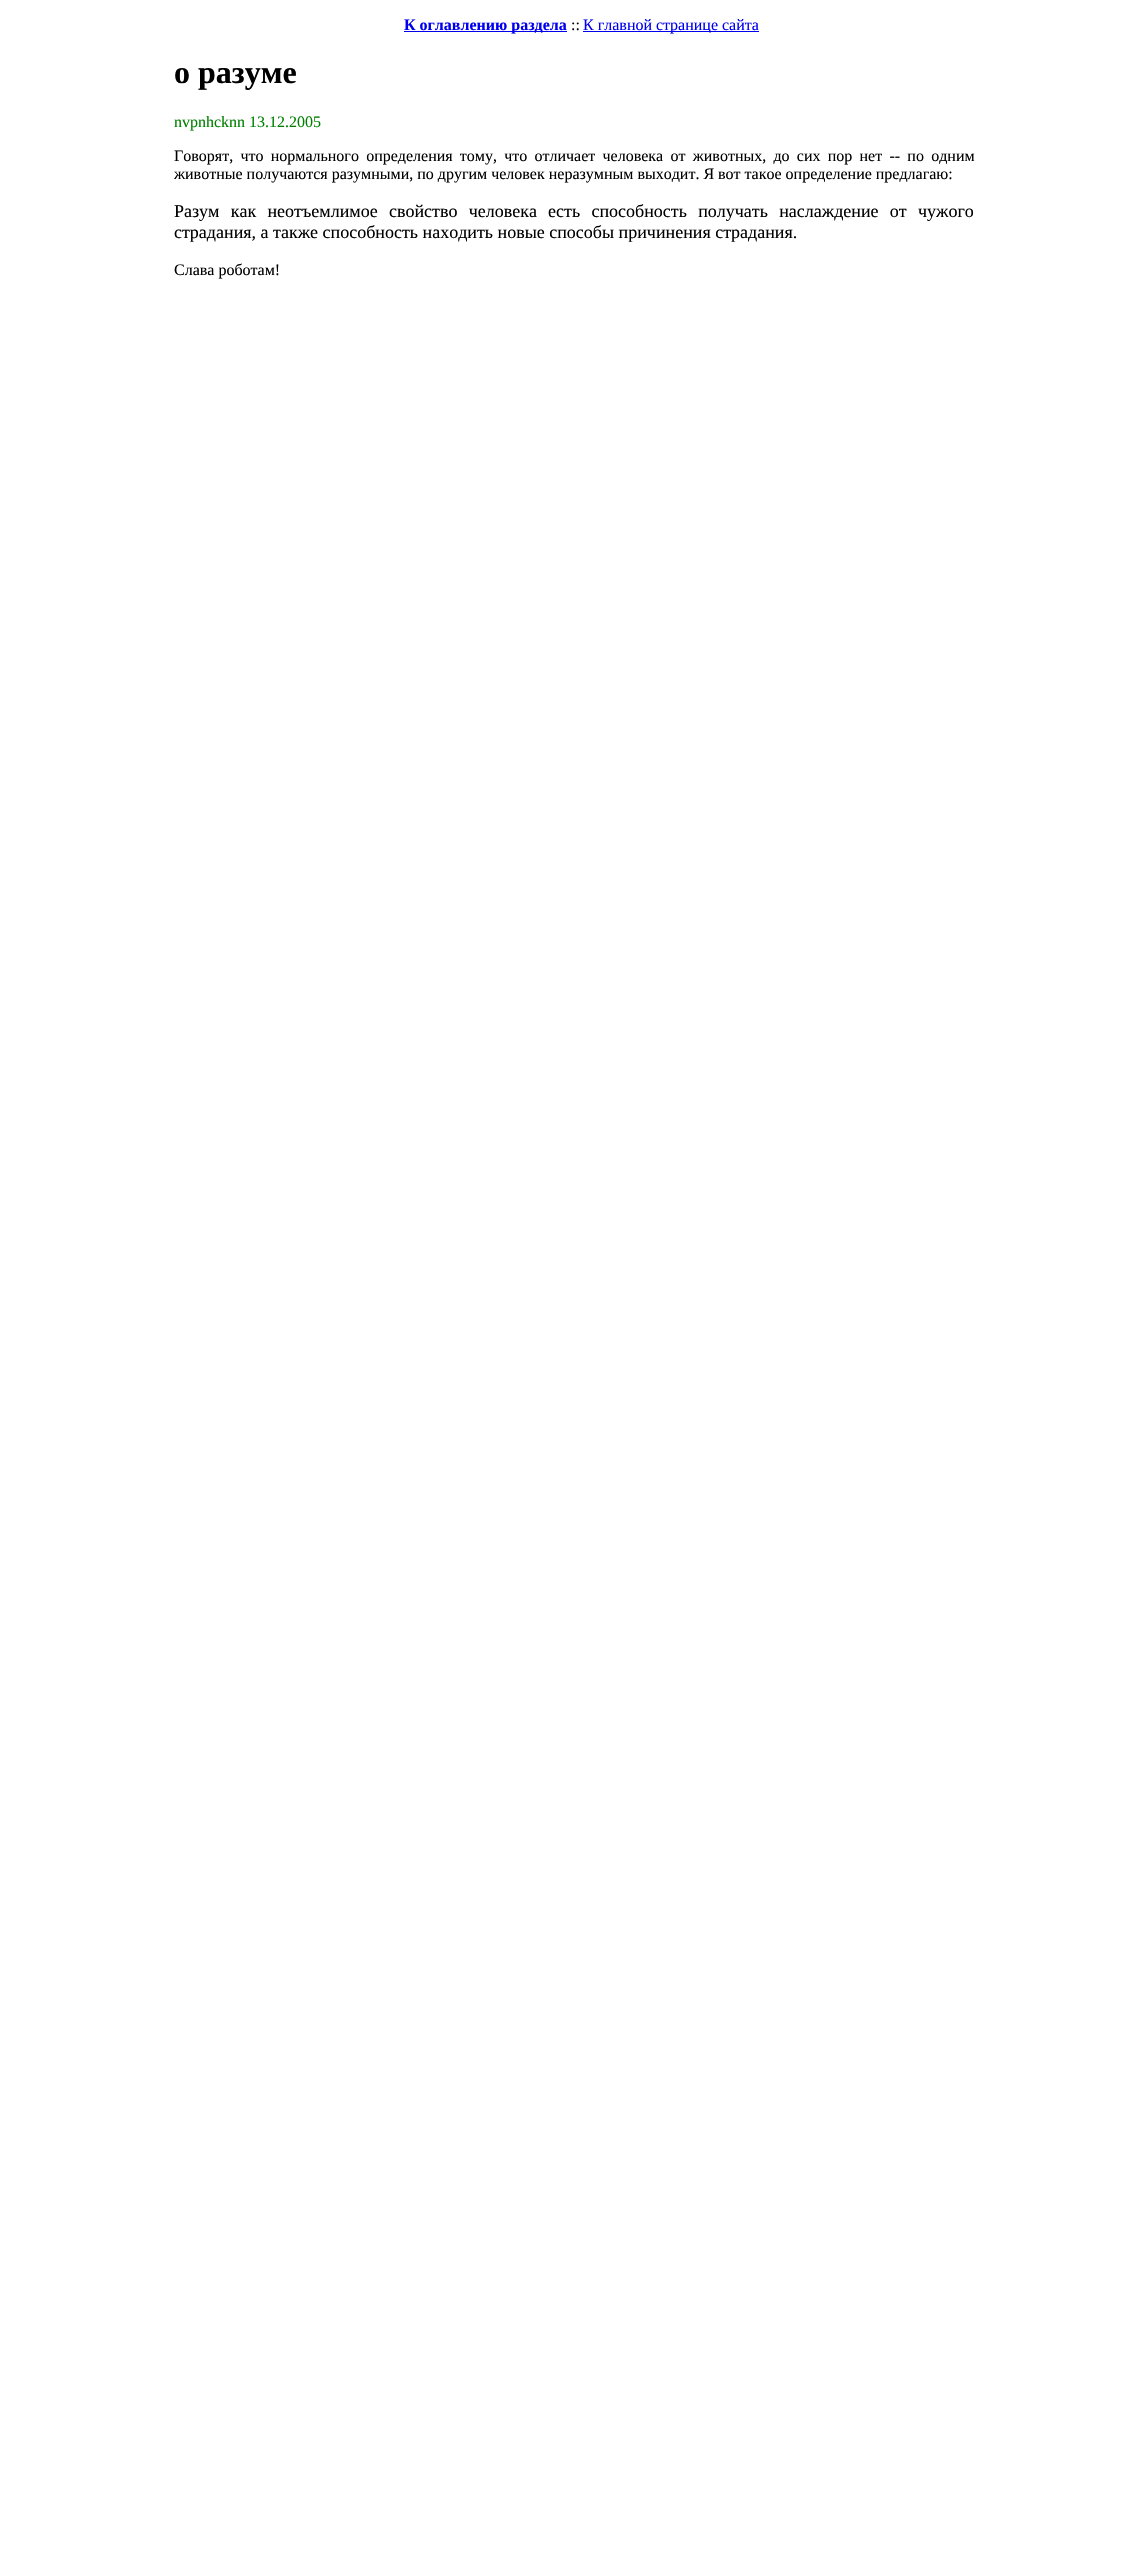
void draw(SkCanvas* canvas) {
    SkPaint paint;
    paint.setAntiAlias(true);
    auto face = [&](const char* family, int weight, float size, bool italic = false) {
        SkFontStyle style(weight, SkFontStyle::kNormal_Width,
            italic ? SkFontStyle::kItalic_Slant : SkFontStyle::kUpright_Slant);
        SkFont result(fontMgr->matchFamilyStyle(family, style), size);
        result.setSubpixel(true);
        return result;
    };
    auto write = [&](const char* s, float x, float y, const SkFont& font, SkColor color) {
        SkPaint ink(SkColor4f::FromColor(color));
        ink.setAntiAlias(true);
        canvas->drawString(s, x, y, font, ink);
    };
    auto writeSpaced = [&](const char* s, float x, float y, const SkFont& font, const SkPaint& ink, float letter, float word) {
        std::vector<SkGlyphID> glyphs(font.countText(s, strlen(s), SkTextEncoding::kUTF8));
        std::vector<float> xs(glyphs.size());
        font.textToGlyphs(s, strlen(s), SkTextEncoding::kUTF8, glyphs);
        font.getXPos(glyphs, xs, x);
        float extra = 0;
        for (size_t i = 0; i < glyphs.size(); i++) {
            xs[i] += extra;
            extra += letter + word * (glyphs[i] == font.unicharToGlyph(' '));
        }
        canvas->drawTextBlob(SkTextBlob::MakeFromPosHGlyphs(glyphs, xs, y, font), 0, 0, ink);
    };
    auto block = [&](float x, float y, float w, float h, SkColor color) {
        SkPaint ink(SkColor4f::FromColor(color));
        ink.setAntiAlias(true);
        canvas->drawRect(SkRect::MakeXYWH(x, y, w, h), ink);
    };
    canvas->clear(SK_ColorWHITE);
    block(404, 31, 163, 1, SkColorSetRGB(0, 0, 238));
    auto kFont1 = face("Liberation Serif", 700, 16);
    write("К оглавлению раздела", 404, 30, kFont1, SkColorSetRGB(0, 0, 238));
    auto kFont2 = face("Liberation Serif", 400, 16);
    write("::", 571, 30, kFont2, SK_ColorBLACK);
    block(583, 31, 176, 1, SkColorSetRGB(0, 0, 238));
    write("К главной странице сайта", 583, 30, kFont2, SkColorSetRGB(0, 0, 238));
    auto kFont3 = face("Liberation Serif", 700, 32);
    write("о разуме", 174, 83, kFont3, SK_ColorBLACK);
    write("nvpnhcknn 13.12.2005", 174, 127, kFont2, SkColorSetRGB(0, 128, 0));
    paint.setColor(SK_ColorBLACK);
    writeSpaced("Говорят, что нормального определения тому, что отличает человека от животных, до сих пор нет -- по одним", 174, 161, kFont2, paint, 0, 3.25f);
    write("животные получаются разумными, по другим человек неразумным выходит. Я вот такое определение предлагаю:", 174, 179, kFont2, SK_ColorBLACK);
    auto kFont4 = face("Liberation Serif", 400, 18);
    writeSpaced("Разум как неотъемлимое свойство человека есть способность получать наслаждение от чужого", 174, 217, kFont4, paint, 0, 6.75f);
    write("страдания, а также способность находить новые способы причинения страдания.", 174, 238, kFont4, SK_ColorBLACK);
    write("Слава роботам!", 174, 275, kFont2, SK_ColorBLACK);
}
